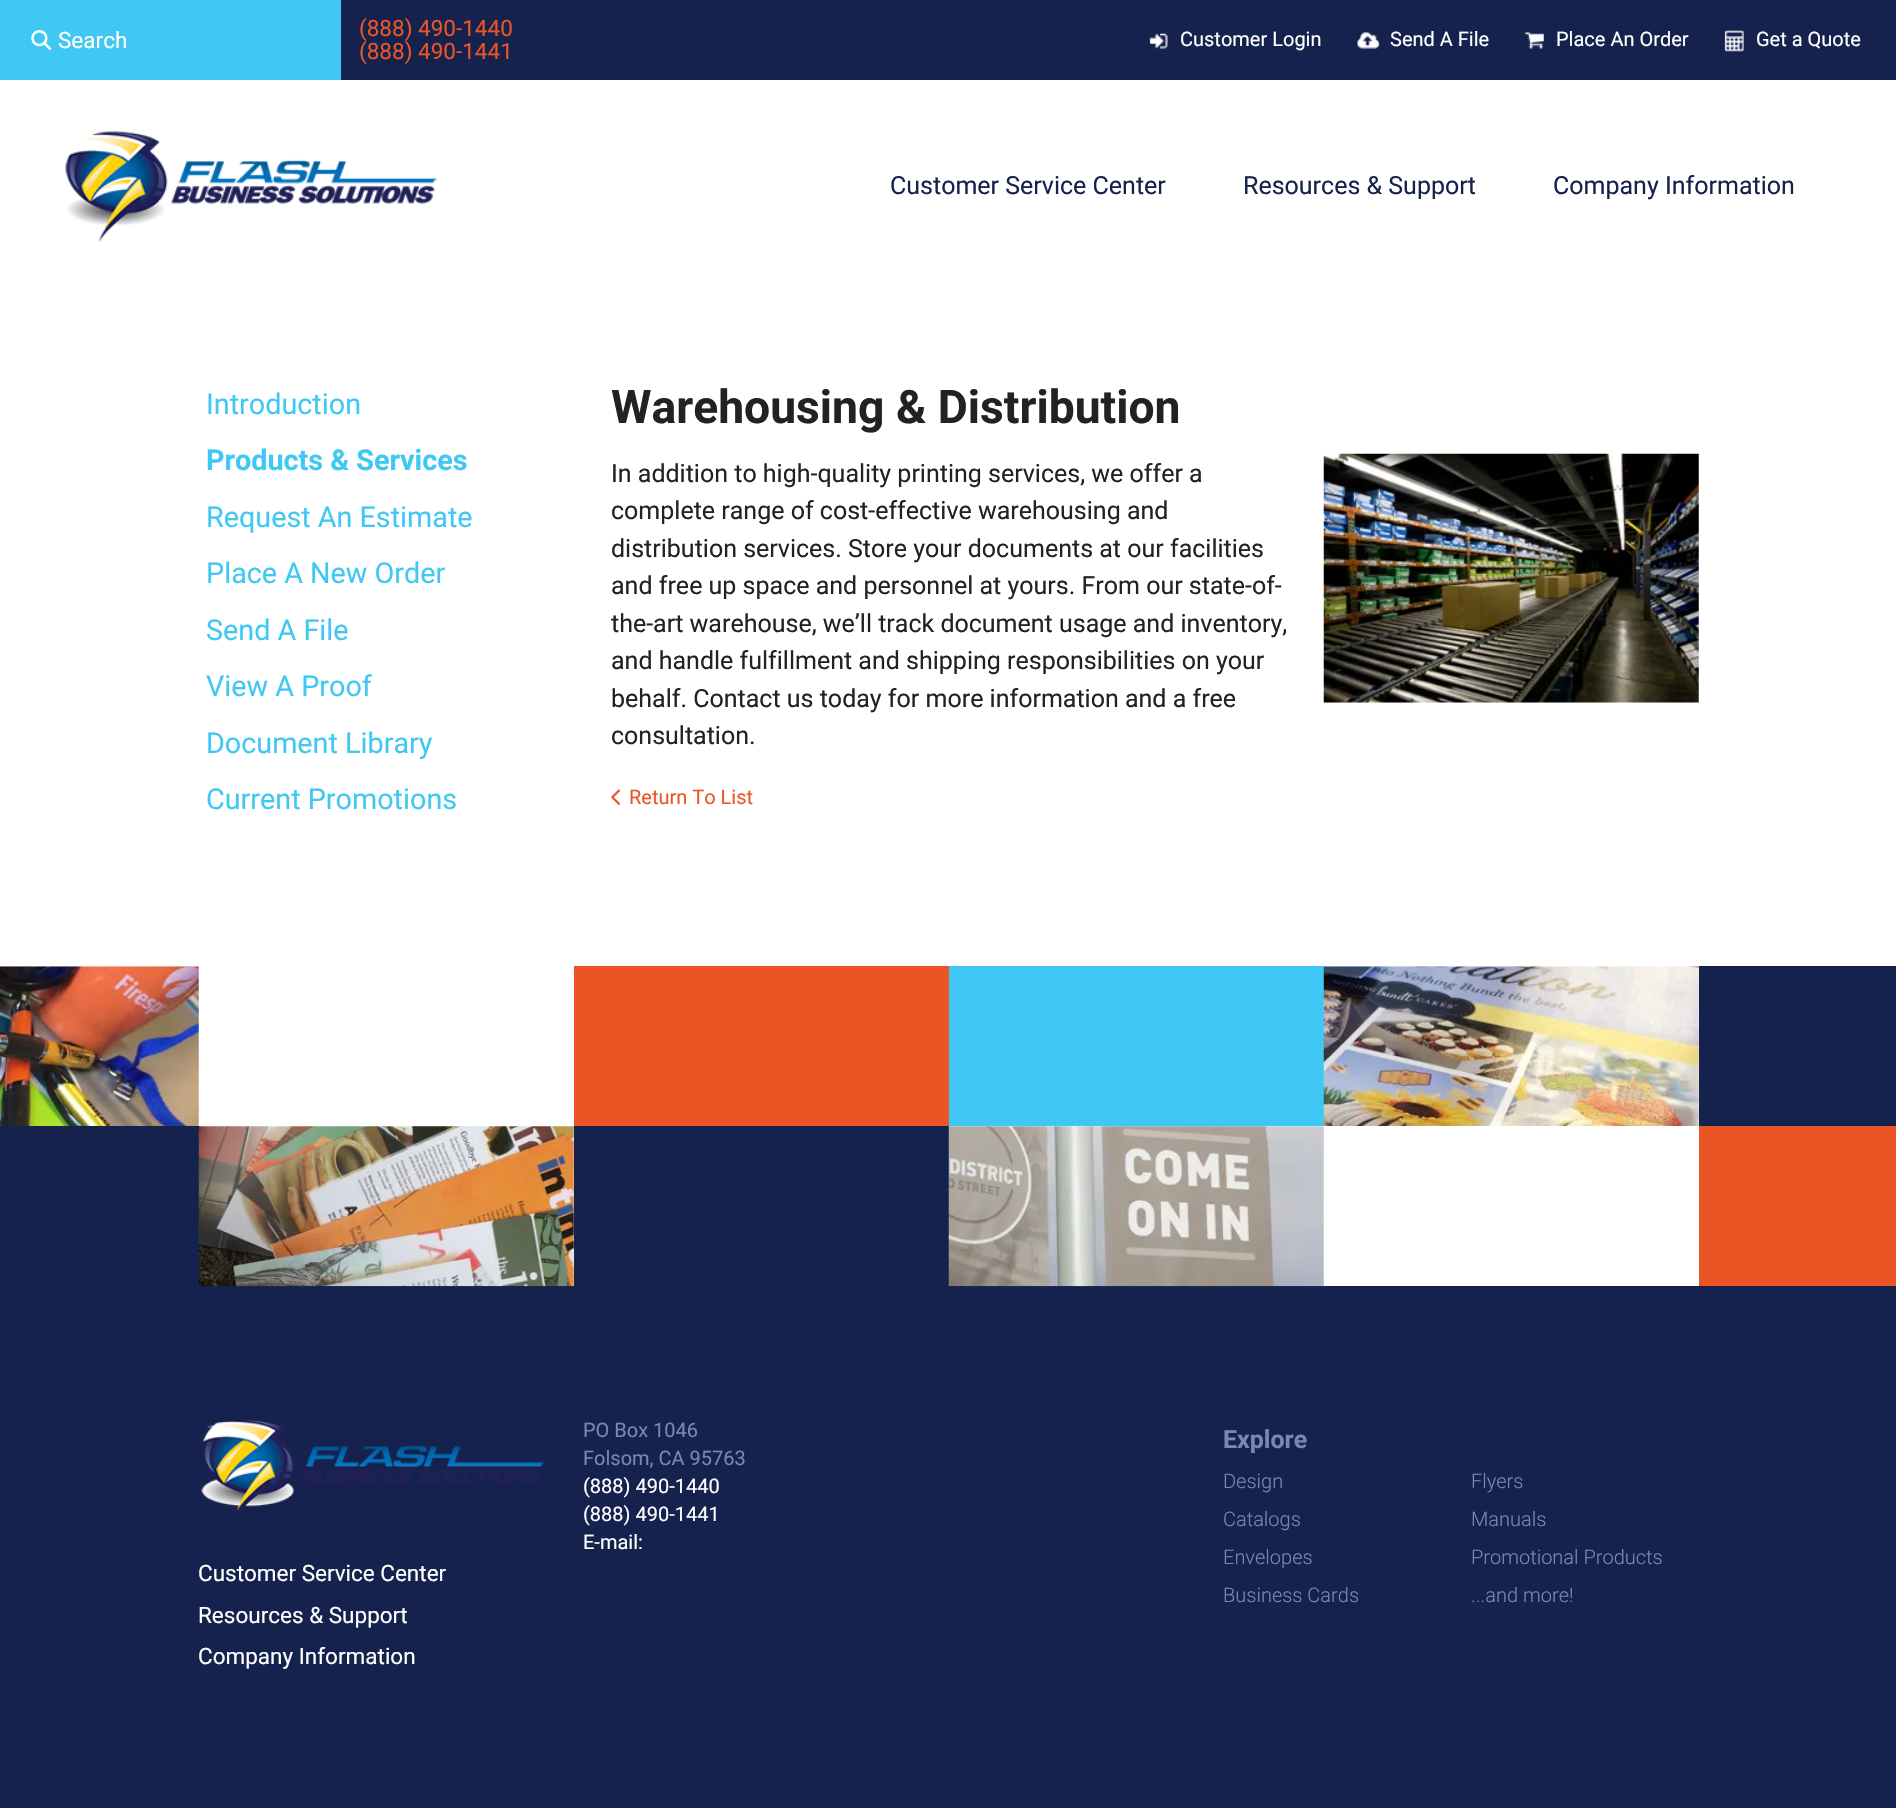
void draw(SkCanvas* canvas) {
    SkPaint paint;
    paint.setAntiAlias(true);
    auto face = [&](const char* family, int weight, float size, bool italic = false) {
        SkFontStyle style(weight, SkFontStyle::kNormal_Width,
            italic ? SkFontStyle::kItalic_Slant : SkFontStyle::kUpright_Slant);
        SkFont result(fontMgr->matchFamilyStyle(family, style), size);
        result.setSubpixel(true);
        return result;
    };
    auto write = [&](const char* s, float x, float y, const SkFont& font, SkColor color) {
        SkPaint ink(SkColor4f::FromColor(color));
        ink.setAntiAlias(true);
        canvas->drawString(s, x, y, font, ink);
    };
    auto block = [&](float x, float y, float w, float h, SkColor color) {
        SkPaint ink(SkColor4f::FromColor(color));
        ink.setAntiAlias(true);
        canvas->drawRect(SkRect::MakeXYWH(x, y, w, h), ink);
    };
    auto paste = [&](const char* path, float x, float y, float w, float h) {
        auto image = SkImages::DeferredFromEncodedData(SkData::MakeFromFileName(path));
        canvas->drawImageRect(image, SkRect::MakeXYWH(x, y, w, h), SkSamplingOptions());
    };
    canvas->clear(SK_ColorWHITE);
    block(341, 0, 1555, 80, SkColorSetRGB(21, 34, 77));
    block(0, 0, 341, 80, SkColorSetRGB(63, 200, 243));
    paste("pic1.png", 31, 30, 21, 20);
    auto kFont1 = face("Roboto", 400, 22.5f);
    write("Search", 58, 48, kFont1, SK_ColorWHITE);
    write("(888) 490-1440", 359, 36, kFont1, SkColorSetRGB(235, 85, 38));
    write("(888) 490-1441", 359, 59, kFont1, SkColorSetRGB(235, 85, 38));
    paste("pic2.png", 1149, 33, 19, 16);
    auto kFont2 = face("Roboto", 400, 20);
    write("Customer Login", 1180, 46, kFont2, SK_ColorWHITE);
    paste("pic3.png", 1357, 32, 23, 17);
    write("Send A File", 1390, 46, kFont2, SK_ColorWHITE);
    paste("pic4.png", 1524, 32, 20, 17);
    write("Place An Order", 1556, 46, kFont2, SK_ColorWHITE);
    paste("pic5.png", 1724, 30, 20, 22);
    write("Get a Quote", 1756, 46, kFont2, SK_ColorWHITE);
    paste("pic6.png", 65, 131, 372, 111);
    auto kFont3 = face("Roboto", 400, 25);
    write("Customer Service Center", 890, 194, kFont3, SkColorSetRGB(21, 34, 77));
    write("Resources & Support", 1243, 194, kFont3, SkColorSetRGB(21, 34, 77));
    write("Company Information", 1553, 194, kFont3, SkColorSetRGB(21, 34, 77));
    auto kFont4 = face("Roboto", 400, 28.75f);
    write("Introduction", 206, 414, kFont4, SkColorSetRGB(63, 200, 243));
    auto kFont5 = face("Roboto", 700, 28.75f);
    write("Products & Services", 206, 470, kFont5, SkColorSetRGB(63, 200, 243));
    write("Request An Estimate", 206, 527, kFont4, SkColorSetRGB(63, 200, 243));
    write("Place A New Order", 206, 583, kFont4, SkColorSetRGB(63, 200, 243));
    write("Send A File", 206, 640, kFont4, SkColorSetRGB(63, 200, 243));
    write("View A Proof", 206, 696, kFont4, SkColorSetRGB(63, 200, 243));
    write("Document Library", 206, 753, kFont4, SkColorSetRGB(63, 200, 243));
    write("Current Promotions", 206, 809, kFont4, SkColorSetRGB(63, 200, 243));
    auto kFont6 = face("Roboto", 700, 46.25f);
    write("Warehousing & Distribution", 611, 423, kFont6, SkColorSetRGB(34, 34, 34));
    write("In addition to high-quality printing services, we offer a", 611, 482, kFont3, SkColorSetRGB(34, 34, 34));
    write("complete range of cost-effective warehousing and", 611, 519, kFont3, SkColorSetRGB(34, 34, 34));
    write("distribution services. Store your documents at our facilities", 611, 557, kFont3, SkColorSetRGB(34, 34, 34));
    write("and free up space and personnel at yours. From our state-of-", 611, 594, kFont3, SkColorSetRGB(34, 34, 34));
    write("the-art warehouse, we’ll track document usage and inventory,", 611, 632, kFont3, SkColorSetRGB(34, 34, 34));
    write("and handle fulfillment and shipping responsibilities on your", 611, 669, kFont3, SkColorSetRGB(34, 34, 34));
    write("behalf. Contact us today for more information and a free", 611, 707, kFont3, SkColorSetRGB(34, 34, 34));
    write("consultation.", 611, 744, kFont3, SkColorSetRGB(34, 34, 34));
    paste("pic7.png", 1323, 453, 376, 250);
    paste("pic8.png", 611, 789, 9, 16);
    write("Return To List", 629, 804, kFont2, SkColorSetRGB(235, 85, 38));
    paste("pic9.png", 0, 966, 199, 160);
    block(574, 966, 375, 160, SkColorSetRGB(235, 85, 38));
    block(949, 966, 375, 160, SkColorSetRGB(63, 200, 243));
    paste("pic10.png", 1323, 966, 376, 160);
    block(1699, 966, 197, 160, SkColorSetRGB(21, 34, 77));
    block(0, 1126, 199, 160, SkColorSetRGB(21, 34, 77));
    block(0, 1286, 1896, 522, SkColorSetRGB(21, 34, 77));
    paste("pic11.png", 198, 1126, 376, 161);
    block(574, 1126, 375, 160, SkColorSetRGB(21, 34, 77));
    paste("pic12.png", 948, 1126, 376, 161);
    block(1699, 1126, 197, 160, SkColorSetRGB(235, 85, 38));
    write("PO Box 1046", 583, 1437, kFont2, SkColorSetRGB(124, 135, 175));
    write("Folsom, CA 95763", 583, 1465, kFont2, SkColorSetRGB(124, 135, 175));
    write("(888) 490-1440", 583, 1493, kFont2, SK_ColorWHITE);
    write("(888) 490-1441", 583, 1521, kFont2, SK_ColorWHITE);
    write("E-mail:", 583, 1549, kFont2, SK_ColorWHITE);
    auto kFont7 = face("Roboto", 700, 25);
    write("Explore", 1223, 1448, kFont7, SkColorSetRGB(124, 135, 175));
    auto kFont8 = face("Roboto", 300, 20);
    write("Design", 1223, 1488, kFont8, SkColorSetRGB(124, 135, 175));
    write("Flyers", 1471, 1488, kFont8, SkColorSetRGB(124, 135, 175));
    write("Catalogs", 1223, 1526, kFont8, SkColorSetRGB(124, 135, 175));
    write("Manuals", 1471, 1526, kFont8, SkColorSetRGB(124, 135, 175));
    write("Envelopes", 1223, 1564, kFont8, SkColorSetRGB(124, 135, 175));
    write("Promotional Products", 1471, 1564, kFont8, SkColorSetRGB(124, 135, 175));
    write("Business Cards", 1223, 1602, kFont8, SkColorSetRGB(124, 135, 175));
    write("...and more!", 1471, 1602, kFont8, SkColorSetRGB(124, 135, 175));
    paste("pic13.png", 201, 1419, 343, 99);
    write("Customer Service Center", 198, 1581, kFont1, SK_ColorWHITE);
    write("Resources & Support", 198, 1623, kFont1, SK_ColorWHITE);
    write("Company Information", 198, 1664, kFont1, SK_ColorWHITE);
}
